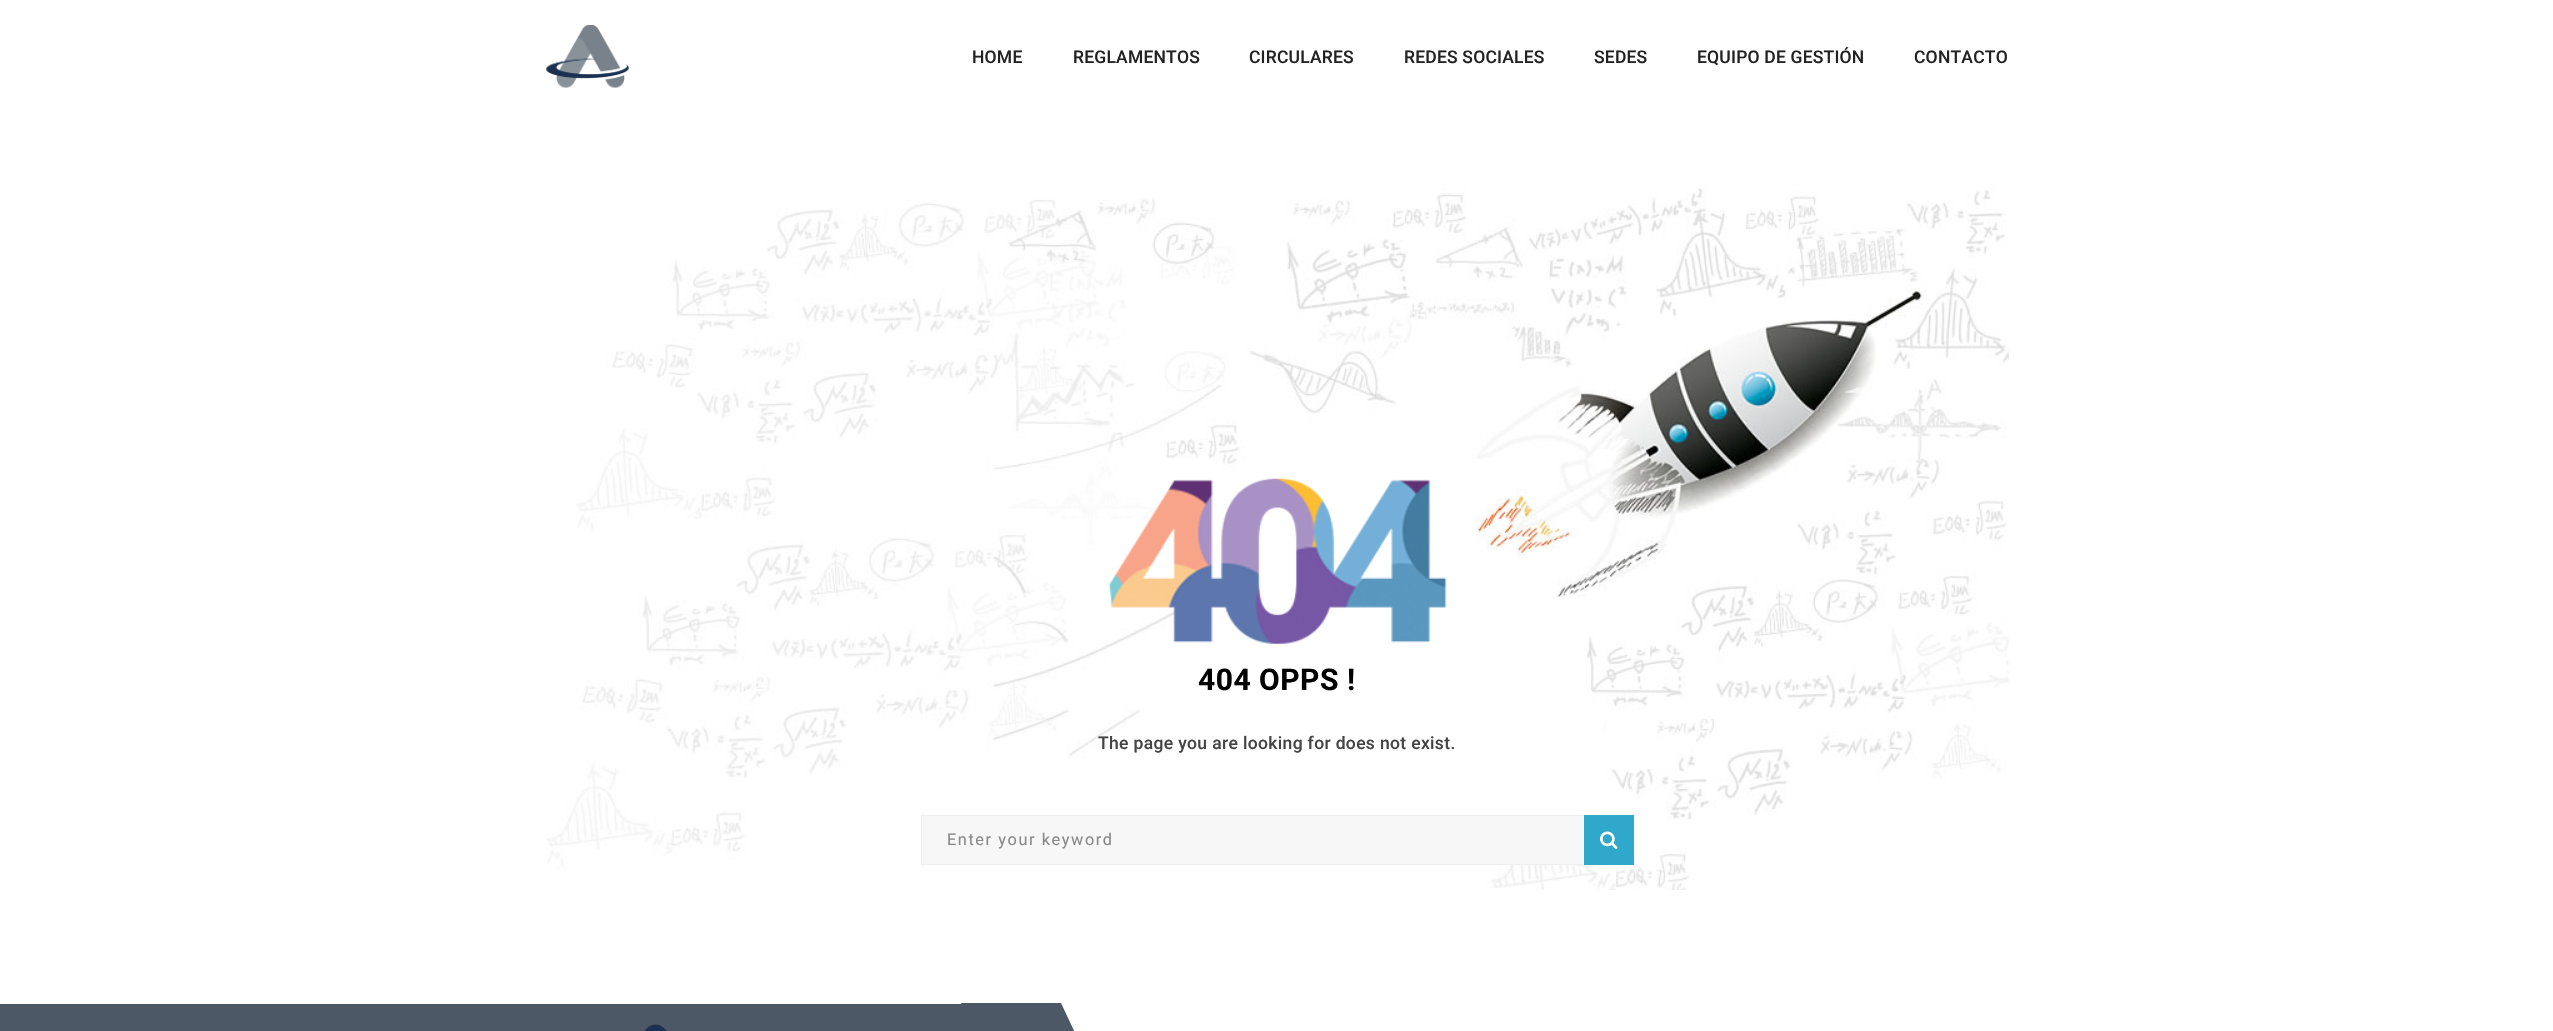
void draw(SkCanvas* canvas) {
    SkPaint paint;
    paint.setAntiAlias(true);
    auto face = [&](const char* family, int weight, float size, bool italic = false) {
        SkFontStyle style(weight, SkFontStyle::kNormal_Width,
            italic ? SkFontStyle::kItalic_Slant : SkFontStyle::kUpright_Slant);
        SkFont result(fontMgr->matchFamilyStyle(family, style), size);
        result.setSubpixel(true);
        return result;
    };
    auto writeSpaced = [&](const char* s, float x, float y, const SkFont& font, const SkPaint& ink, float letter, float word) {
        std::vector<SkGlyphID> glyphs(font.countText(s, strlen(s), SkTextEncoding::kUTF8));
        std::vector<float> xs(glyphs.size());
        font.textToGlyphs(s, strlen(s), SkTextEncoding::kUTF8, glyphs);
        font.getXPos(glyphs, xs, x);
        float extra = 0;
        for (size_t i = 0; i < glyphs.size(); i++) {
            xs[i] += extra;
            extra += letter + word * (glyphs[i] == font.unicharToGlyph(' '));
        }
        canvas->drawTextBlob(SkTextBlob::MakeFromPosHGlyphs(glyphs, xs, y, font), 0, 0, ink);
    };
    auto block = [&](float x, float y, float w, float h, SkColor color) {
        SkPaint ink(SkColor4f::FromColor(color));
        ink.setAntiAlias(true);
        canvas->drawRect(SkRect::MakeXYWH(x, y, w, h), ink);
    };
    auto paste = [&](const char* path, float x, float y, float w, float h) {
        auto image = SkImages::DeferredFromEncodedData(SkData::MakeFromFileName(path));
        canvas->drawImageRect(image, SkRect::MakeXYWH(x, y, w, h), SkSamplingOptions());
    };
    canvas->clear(SK_ColorWHITE);
    paste("pic1.png", 546, 25, 83, 63);
    auto kFont1 = face("Roboto", 500, 17.5f);
    paint.setColor(SkColorSetRGB(34, 34, 34));
    writeSpaced("HOME", 972, 63, kFont1, paint, 0.2f, 0);
    writeSpaced("REGLAMENTOS", 1073, 63, kFont1, paint, 0.2f, 0);
    writeSpaced("CIRCULARES", 1249, 63, kFont1, paint, 0.2f, 0);
    writeSpaced("REDES SOCIALES", 1404, 63, kFont1, paint, 0.2f, 0);
    writeSpaced("SEDES", 1594, 63, kFont1, paint, 0.2f, 0);
    writeSpaced("EQUIPO DE GESTIÓN", 1697, 63, kFont1, paint, 0.2f, 0);
    writeSpaced("CONTACTO", 1914, 63, kFont1, paint, 0.2f, 0);
    paste("pic2.png", 546, 188, 1463, 702);
    paste("pic3.png", 1108, 478, 339, 166);
    auto kFont2 = face("Roboto", 700, 30);
    paint.setColor(SK_ColorBLACK);
    writeSpaced("404 OPPS !", 1198, 690, kFont2, paint, 0.5f, 0);
    paint.setColor(SkColorSetRGB(68, 68, 68));
    writeSpaced("The page you are looking for does not exist.", 1098, 749, kFont1, paint, 0.35f, 0);
    block(922, 816, 662, 48, SkColorSetRGB(247, 247, 247));
    paint.setStyle(SkPaint::kStroke_Style);
    paint.setStrokeWidth(1);
    paint.setColor(SkColorSetRGB(238, 238, 238));
    canvas->drawRect(SkRect::MakeXYWH(921.5f, 815.5f, 712, 49), paint);
    auto kFont3 = face("Roboto", 400, 16.25f);
    paint.setStyle(SkPaint::kFill_Style);
    paint.setColor(SkColorSetRGB(136, 136, 136));
    writeSpaced("Enter your keyword", 947, 845, kFont3, paint, 1.6f, 0);
    block(1584, 815, 50, 50, SkColorSetRGB(48, 168, 204));
    paste("pic4.png", 1600, 831, 18, 18);
    block(0, 1004, 975, 27, SkColorSetRGB(76, 88, 102));
    paste("pic5.png", 644, 1024, 23, 7);
    paint.setColor(SkColorSetRGB(76, 88, 102));
    canvas->drawPath(SkPathBuilder().moveTo(961, 1003).lineTo(1061, 1003).lineTo(1155, 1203).lineTo(1055, 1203).close().detach(), paint);
}
